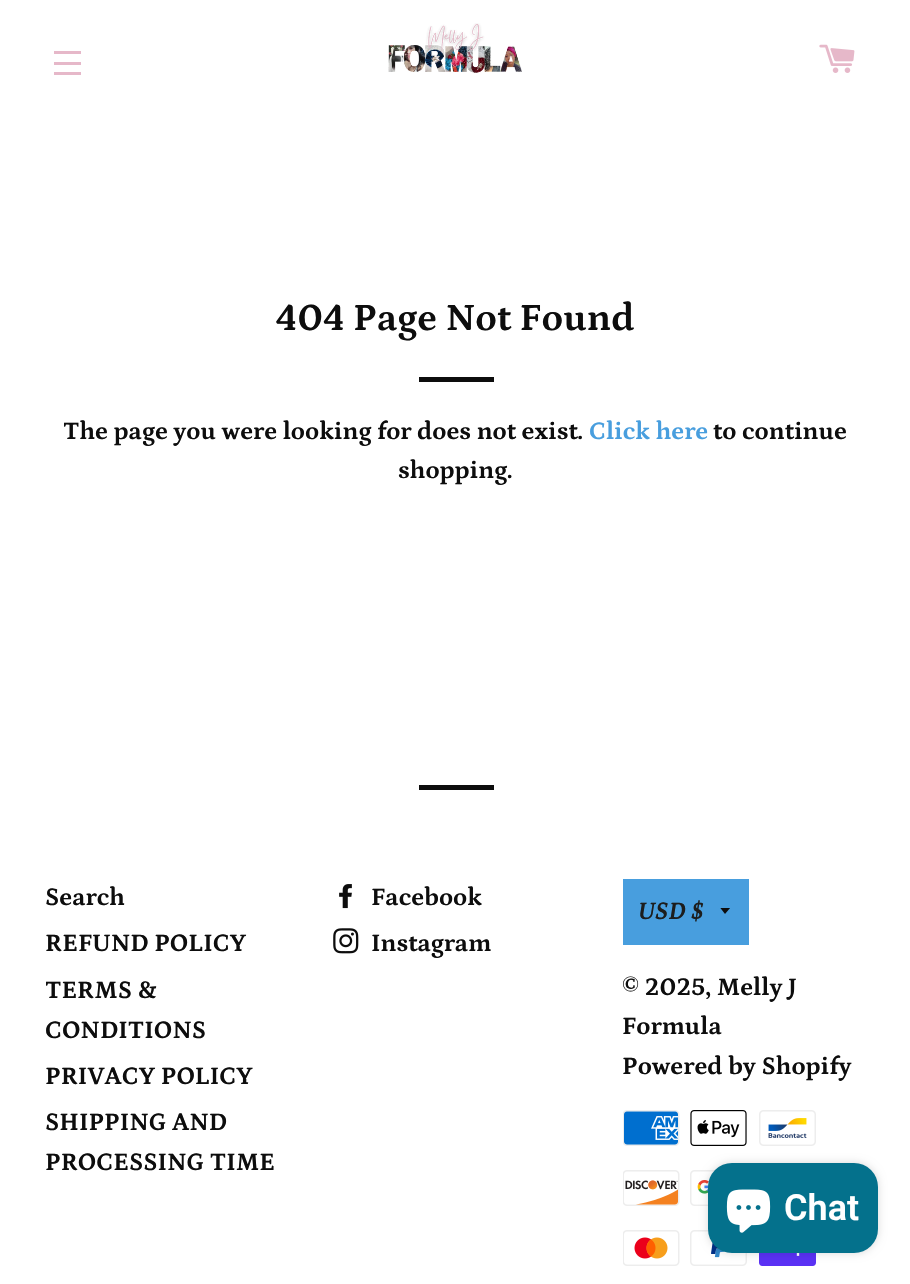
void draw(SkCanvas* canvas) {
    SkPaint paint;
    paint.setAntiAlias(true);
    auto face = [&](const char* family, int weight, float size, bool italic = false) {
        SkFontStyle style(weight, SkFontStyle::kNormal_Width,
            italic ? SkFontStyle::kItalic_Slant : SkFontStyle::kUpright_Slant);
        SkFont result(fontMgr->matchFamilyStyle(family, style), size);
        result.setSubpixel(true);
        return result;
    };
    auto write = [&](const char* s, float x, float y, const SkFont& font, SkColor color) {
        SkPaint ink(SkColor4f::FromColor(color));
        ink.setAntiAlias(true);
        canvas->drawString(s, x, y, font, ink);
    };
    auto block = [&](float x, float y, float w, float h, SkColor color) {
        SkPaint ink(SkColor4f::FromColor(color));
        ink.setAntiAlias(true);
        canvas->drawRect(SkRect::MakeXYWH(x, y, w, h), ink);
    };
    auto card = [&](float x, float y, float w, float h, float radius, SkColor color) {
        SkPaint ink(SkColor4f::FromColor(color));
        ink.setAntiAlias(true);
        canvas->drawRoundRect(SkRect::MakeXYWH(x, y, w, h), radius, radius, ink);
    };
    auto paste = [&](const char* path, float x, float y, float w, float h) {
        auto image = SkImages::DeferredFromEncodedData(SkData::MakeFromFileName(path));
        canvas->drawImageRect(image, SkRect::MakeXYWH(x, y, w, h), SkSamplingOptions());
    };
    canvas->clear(SK_ColorWHITE);
    block(54, 51, 27, 3, SkColorSetRGB(230, 184, 201));
    block(54, 62, 27, 3, SkColorSetRGB(230, 184, 201));
    block(54, 72, 27, 3, SkColorSetRGB(230, 184, 201));
    paste("pic1.png", 388, 23, 134, 50);
    paste("pic2.png", 819, 44, 36, 29);
    auto kFont1 = face("Petrona", 700, 39);
    write("404 Page Not Found", 276, 330, kFont1, SkColorSetRGB(13, 13, 13));
    block(419, 377, 75, 5, SkColorSetRGB(13, 13, 13));
    auto kFont2 = face("Petrona", 700, 25.5f);
    write("The page you were looking for does not exist.", 63, 439, kFont2, SkColorSetRGB(13, 13, 13));
    write("Click here", 589, 439, kFont2, SkColorSetRGB(72, 158, 222));
    write("to continue", 713, 439, kFont2, SkColorSetRGB(13, 13, 13));
    write("shopping.", 398, 478, kFont2, SkColorSetRGB(13, 13, 13));
    block(419, 785, 75, 5, SkColorSetRGB(13, 13, 13));
    write("Search", 45, 905, kFont2, SkColorSetRGB(13, 13, 13));
    write("REFUND POLICY", 45, 951, kFont2, SkColorSetRGB(13, 13, 13));
    write("TERMS &", 45, 998, kFont2, SkColorSetRGB(13, 13, 13));
    write("CONDITIONS", 45, 1038, kFont2, SkColorSetRGB(13, 13, 13));
    write("PRIVACY POLICY", 45, 1084, kFont2, SkColorSetRGB(13, 13, 13));
    write("SHIPPING AND", 45, 1130, kFont2, SkColorSetRGB(13, 13, 13));
    write("PROCESSING TIME", 45, 1170, kFont2, SkColorSetRGB(13, 13, 13));
    paste("pic3.png", 339, 884, 13, 25);
    write("Facebook", 371, 905, kFont2, SkColorSetRGB(13, 13, 13));
    paste("pic4.png", 333, 928, 26, 26);
    write("Instagram", 371, 951, kFont2, SkColorSetRGB(13, 13, 13));
    block(623, 879, 126, 66, SkColorSetRGB(72, 158, 222));
    canvas->save();
    canvas->clipRect(SkRect::MakeXYWH(720, 908, 12, 7));
    paint.setColor(SkColorSetRGB(13, 13, 13));
    canvas->drawPath(SkPathBuilder().moveTo(720, 907.5f).lineTo(725, 914).lineTo(730.5f, 907.5f).close().detach(), paint);
    canvas->restore();
    auto kFont3 = face("Petrona", 700, 25.5f, true);
    write("USD $", 638, 919, kFont3, SkColorSetRGB(28, 29, 29));
    write("© 2025, Melly J", 622, 995, kFont2, SkColorSetRGB(13, 13, 13));
    write("Formula", 622, 1034, kFont2, SkColorSetRGB(13, 13, 13));
    write("Powered by Shopify", 622, 1074, kFont2, SkColorSetRGB(13, 13, 13));
    paste("pic5.png", 623, 1110, 57, 36);
    paste("pic6.png", 690, 1110, 57, 36);
    paste("pic7.png", 759, 1110, 57, 36);
    paste("pic8.png", 623, 1170, 57, 36);
    paste("pic9.png", 690, 1170, 25, 36);
    paste("pic10.png", 623, 1230, 57, 36);
    paste("pic11.png", 690, 1230, 57, 36);
    paste("pic12.png", 759, 1253, 57, 13);
    paint.setColor(SkColorSetARGB(38, 0, 0, 0));
    paint.setMaskFilter(SkMaskFilter::MakeBlur(kNormal_SkBlurStyle, 4));
    canvas->drawRoundRect(SkRect::MakeXYWH(708, 1163, 170, 90), 24, 24, paint);
    paint.setMaskFilter(nullptr);
    card(708, 1163, 170, 90, 24, SkColorSetRGB(4, 113, 140));
    paste("pic13.png", 726, 1189, 45, 44);
    auto kFont4 = face("Roboto", 600, 36);
    write("Chat", 784, 1220, kFont4, SK_ColorWHITE);
}
